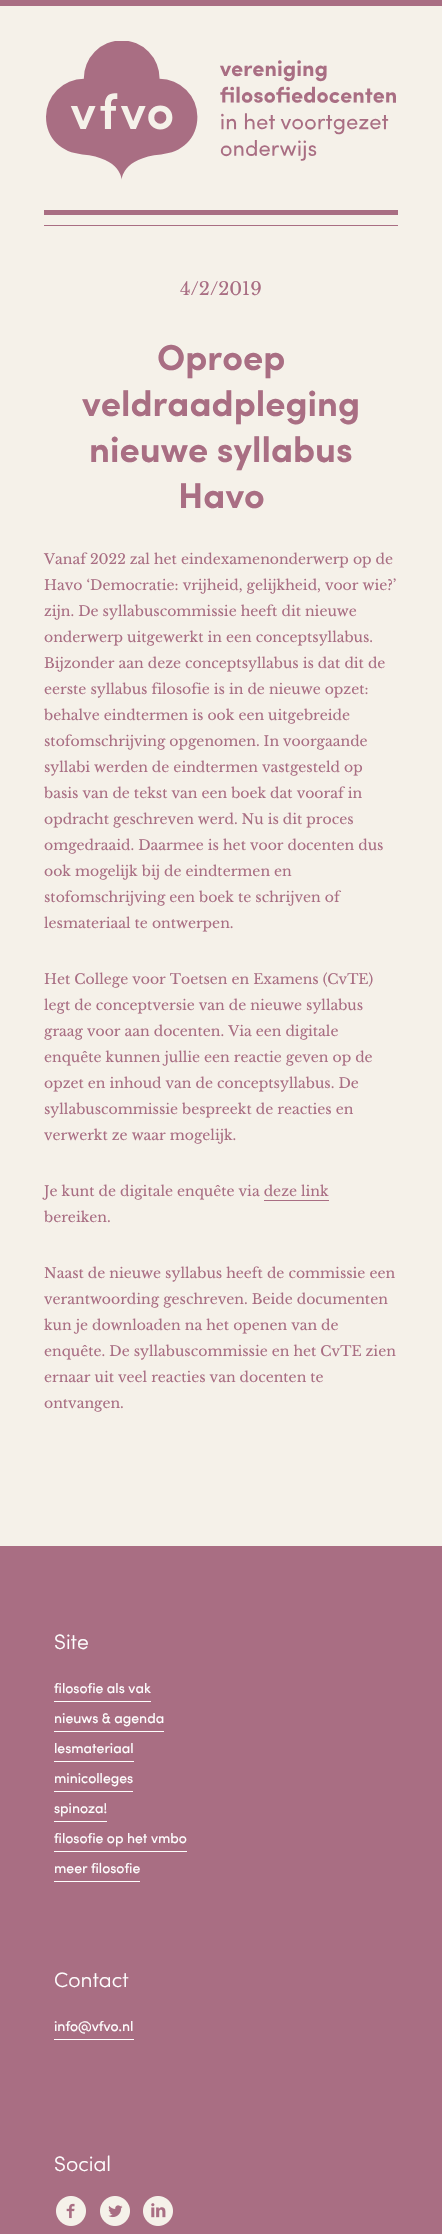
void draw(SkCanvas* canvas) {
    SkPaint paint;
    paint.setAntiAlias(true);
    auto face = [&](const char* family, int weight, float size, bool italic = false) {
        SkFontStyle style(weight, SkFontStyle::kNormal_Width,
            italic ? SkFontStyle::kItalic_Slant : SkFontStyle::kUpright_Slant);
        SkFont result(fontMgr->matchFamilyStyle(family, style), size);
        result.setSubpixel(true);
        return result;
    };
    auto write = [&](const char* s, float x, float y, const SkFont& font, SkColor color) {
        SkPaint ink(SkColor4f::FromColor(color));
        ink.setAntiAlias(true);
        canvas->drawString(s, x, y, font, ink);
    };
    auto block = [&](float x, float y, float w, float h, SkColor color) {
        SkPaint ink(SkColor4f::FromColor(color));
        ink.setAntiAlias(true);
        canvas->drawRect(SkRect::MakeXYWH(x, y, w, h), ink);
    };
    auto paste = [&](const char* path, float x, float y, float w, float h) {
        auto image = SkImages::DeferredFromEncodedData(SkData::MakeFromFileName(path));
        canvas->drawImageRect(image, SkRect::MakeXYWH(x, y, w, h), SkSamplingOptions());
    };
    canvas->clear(SkColorSetRGB(245, 241, 233));
    block(0, 0, 442, 6, SkColorSetRGB(169, 110, 131));
    paste("pic1.png", 46, 41, 350, 139);
    block(44, 210, 354, 5, SkColorSetRGB(169, 110, 131));
    block(44, 225, 354, 1, SkColorSetRGB(169, 110, 131));
    auto kFont1 = face("Libre Baskerville", 400, 18);
    write("4/2/2019", 180, 295, kFont1, SkColorSetRGB(169, 110, 131));
    auto kFont2 = face("Sofia", 700, 36);
    write("Oproep", 157, 370, kFont2, SkColorSetRGB(169, 110, 131));
    write("veldraadpleging", 82, 416, kFont2, SkColorSetRGB(169, 110, 131));
    write("nieuwe syllabus", 89, 462, kFont2, SkColorSetRGB(169, 110, 131));
    write("Havo", 178, 508, kFont2, SkColorSetRGB(169, 110, 131));
    auto kFont3 = face("Libre Baskerville", 400, 14);
    write("Vanaf 2022 zal het eindexamenonderwerp op de", 44, 564, kFont3, SkColorSetRGB(169, 110, 131));
    write("Havo ‘Democratie: vrijheid, gelijkheid, voor wie?’", 44, 590, kFont3, SkColorSetRGB(169, 110, 131));
    write("zijn. De syllabuscommissie heeft dit nieuwe", 44, 616, kFont3, SkColorSetRGB(169, 110, 131));
    write("onderwerp uitgewerkt in een conceptsyllabus.", 44, 642, kFont3, SkColorSetRGB(169, 110, 131));
    write("Bijzonder aan deze conceptsyllabus is dat dit de", 44, 668, kFont3, SkColorSetRGB(169, 110, 131));
    write("eerste syllabus filosofie is in de nieuwe opzet:", 44, 694, kFont3, SkColorSetRGB(169, 110, 131));
    write("behalve eindtermen is ook een uitgebreide", 44, 720, kFont3, SkColorSetRGB(169, 110, 131));
    write("stofomschrijving opgenomen. In voorgaande", 44, 746, kFont3, SkColorSetRGB(169, 110, 131));
    write("syllabi werden de eindtermen vastgesteld op", 44, 772, kFont3, SkColorSetRGB(169, 110, 131));
    write("basis van de tekst van een boek dat vooraf in", 44, 798, kFont3, SkColorSetRGB(169, 110, 131));
    write("opdracht geschreven werd. Nu is dit proces", 44, 824, kFont3, SkColorSetRGB(169, 110, 131));
    write("omgedraaid. Daarmee is het voor docenten dus", 44, 850, kFont3, SkColorSetRGB(169, 110, 131));
    write("ook mogelijk bij de eindtermen en", 44, 876, kFont3, SkColorSetRGB(169, 110, 131));
    write("stofomschrijving een boek te schrijven of", 44, 902, kFont3, SkColorSetRGB(169, 110, 131));
    write("lesmateriaal te ontwerpen.", 44, 928, kFont3, SkColorSetRGB(169, 110, 131));
    write("Het College voor Toetsen en Examens (CvTE)", 44, 984, kFont3, SkColorSetRGB(169, 110, 131));
    write("legt de conceptversie van de nieuwe syllabus", 44, 1010, kFont3, SkColorSetRGB(169, 110, 131));
    write("graag voor aan docenten. Via een digitale", 44, 1036, kFont3, SkColorSetRGB(169, 110, 131));
    write("enquête kunnen jullie een reactie geven op de", 44, 1062, kFont3, SkColorSetRGB(169, 110, 131));
    write("opzet en inhoud van de conceptsyllabus. De", 44, 1088, kFont3, SkColorSetRGB(169, 110, 131));
    write("syllabuscommissie bespreekt de reacties en", 44, 1114, kFont3, SkColorSetRGB(169, 110, 131));
    write("verwerkt ze waar mogelijk.", 44, 1140, kFont3, SkColorSetRGB(169, 110, 131));
    write("Je kunt de digitale enquête via deze link", 44, 1196, kFont3, SkColorSetRGB(169, 110, 131));
    block(264, 1200, 65, 1, SkColorSetRGB(169, 110, 131));
    write("bereiken.", 44, 1222, kFont3, SkColorSetRGB(169, 110, 131));
    write("Naast de nieuwe syllabus heeft de commissie een", 44, 1278, kFont3, SkColorSetRGB(169, 110, 131));
    write("verantwoording geschreven. Beide documenten", 44, 1304, kFont3, SkColorSetRGB(169, 110, 131));
    write("kun je downloaden na het openen van de", 44, 1330, kFont3, SkColorSetRGB(169, 110, 131));
    write("enquête. De syllabuscommissie en het CvTE zien", 44, 1356, kFont3, SkColorSetRGB(169, 110, 131));
    write("ernaar uit veel reacties van docenten te", 44, 1382, kFont3, SkColorSetRGB(169, 110, 131));
    write("ontvangen.", 44, 1408, kFont3, SkColorSetRGB(169, 110, 131));
    block(0, 1546, 442, 688, SkColorSetRGB(169, 110, 131));
    auto kFont4 = face("Sofia", 300, 21);
    write("Site", 54, 1649, kFont4, SK_ColorWHITE);
    auto kFont5 = face("Sofia", 400, 14);
    write("filosofie als vak", 54, 1693, kFont5, SK_ColorWHITE);
    block(54, 1701, 97, 1, SK_ColorWHITE);
    write("nieuws & agenda", 54, 1723, kFont5, SK_ColorWHITE);
    block(54, 1731, 110, 1, SK_ColorWHITE);
    write("lesmateriaal", 54, 1753, kFont5, SK_ColorWHITE);
    block(54, 1761, 80, 1, SK_ColorWHITE);
    write("minicolleges", 54, 1783, kFont5, SK_ColorWHITE);
    block(54, 1791, 79, 1, SK_ColorWHITE);
    write("spinoza!", 54, 1813, kFont5, SK_ColorWHITE);
    block(54, 1821, 53, 1, SK_ColorWHITE);
    write("filosofie op het vmbo", 54, 1843, kFont5, SK_ColorWHITE);
    block(54, 1851, 133, 1, SK_ColorWHITE);
    write("meer filosofie", 54, 1873, kFont5, SK_ColorWHITE);
    block(54, 1881, 86, 1, SK_ColorWHITE);
    write("Contact", 54, 1987, kFont4, SK_ColorWHITE);
    write("info@vfvo.nl", 54, 2031, kFont5, SK_ColorWHITE);
    block(54, 2039, 80, 1, SK_ColorWHITE);
    write("Social", 54, 2171, kFont4, SK_ColorWHITE);
    paste("pic2.png", 56, 2196, 30, 30);
    paste("pic3.png", 100, 2196, 30, 30);
    paste("pic4.png", 143, 2196, 30, 30);
}
